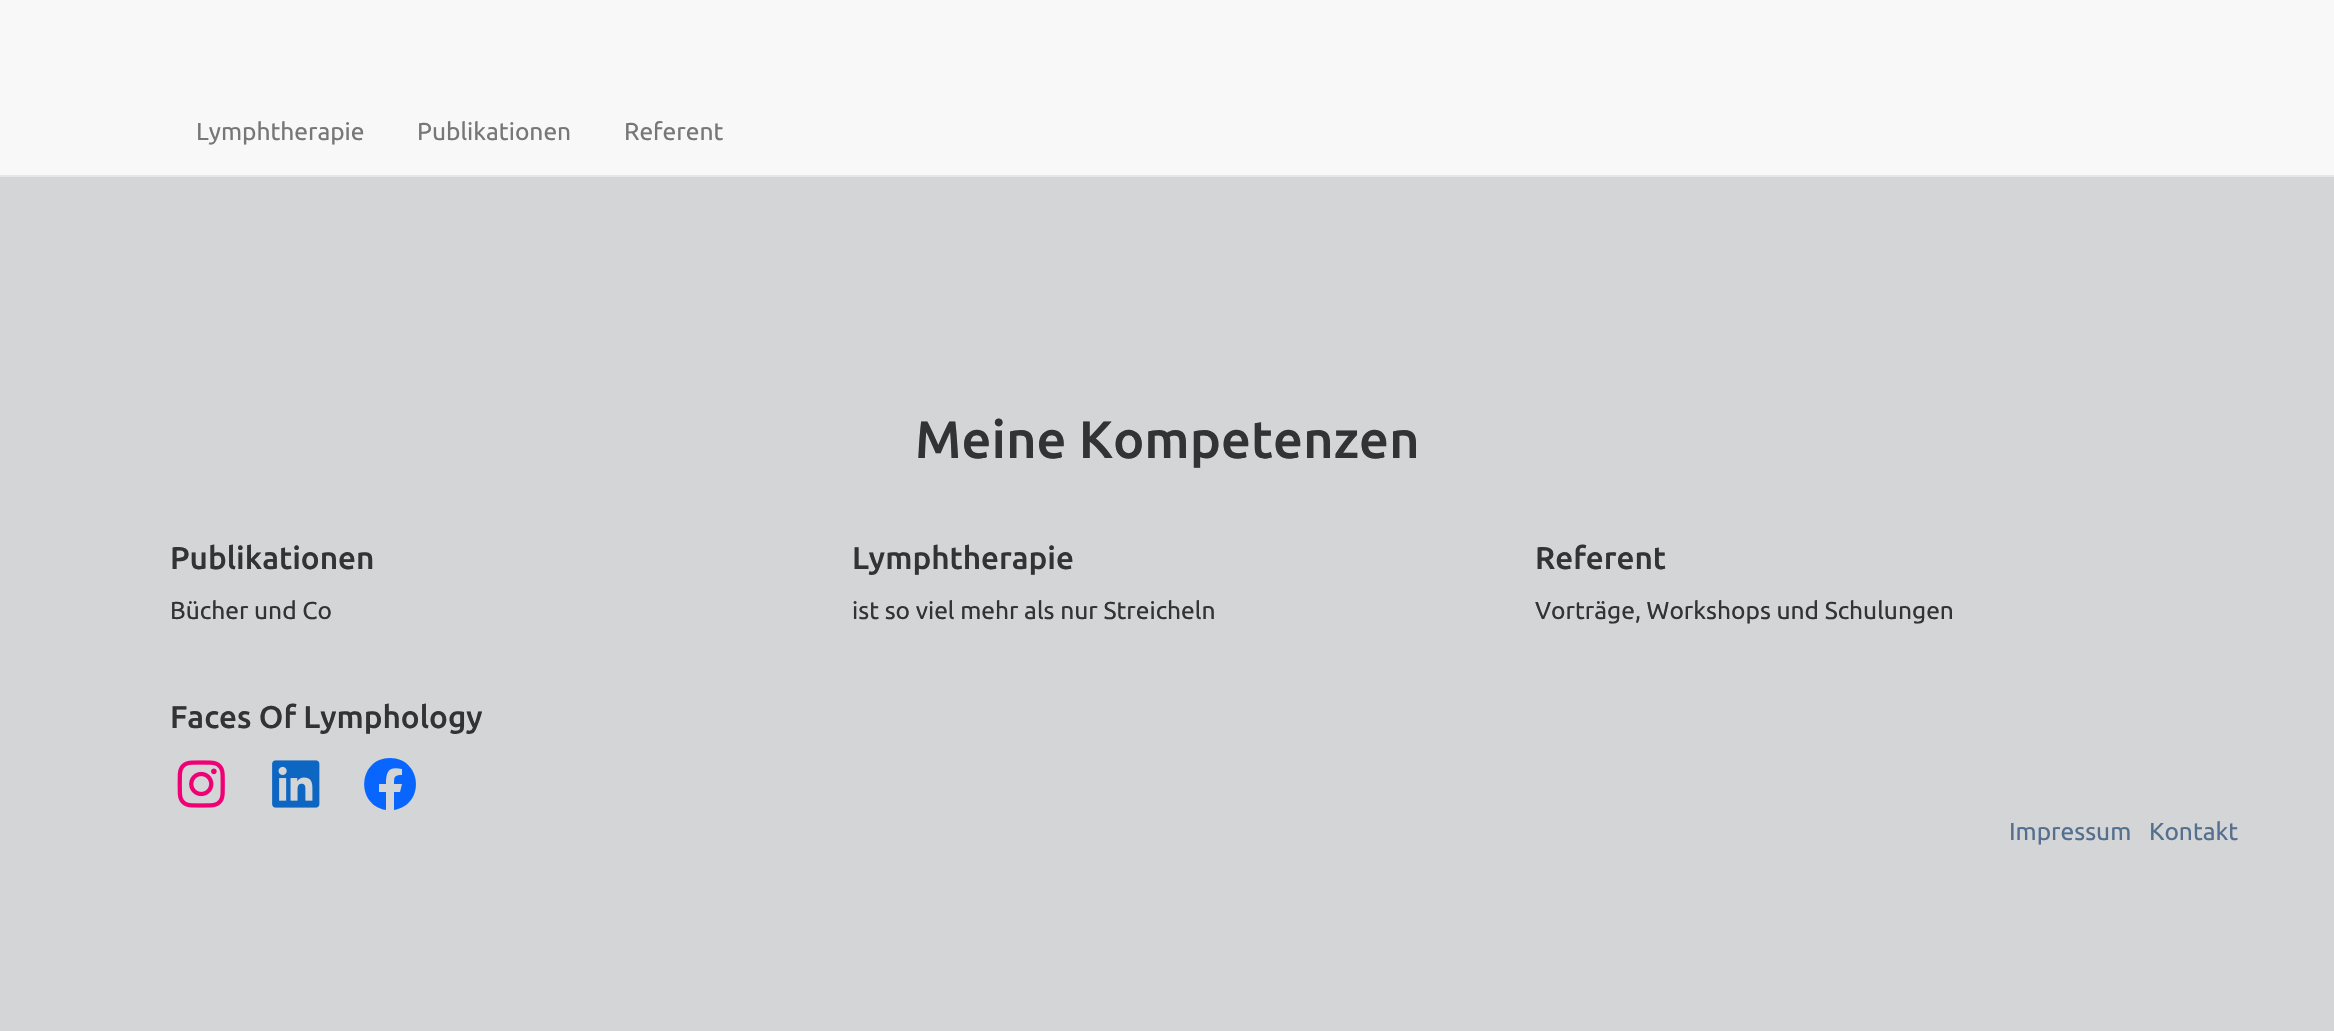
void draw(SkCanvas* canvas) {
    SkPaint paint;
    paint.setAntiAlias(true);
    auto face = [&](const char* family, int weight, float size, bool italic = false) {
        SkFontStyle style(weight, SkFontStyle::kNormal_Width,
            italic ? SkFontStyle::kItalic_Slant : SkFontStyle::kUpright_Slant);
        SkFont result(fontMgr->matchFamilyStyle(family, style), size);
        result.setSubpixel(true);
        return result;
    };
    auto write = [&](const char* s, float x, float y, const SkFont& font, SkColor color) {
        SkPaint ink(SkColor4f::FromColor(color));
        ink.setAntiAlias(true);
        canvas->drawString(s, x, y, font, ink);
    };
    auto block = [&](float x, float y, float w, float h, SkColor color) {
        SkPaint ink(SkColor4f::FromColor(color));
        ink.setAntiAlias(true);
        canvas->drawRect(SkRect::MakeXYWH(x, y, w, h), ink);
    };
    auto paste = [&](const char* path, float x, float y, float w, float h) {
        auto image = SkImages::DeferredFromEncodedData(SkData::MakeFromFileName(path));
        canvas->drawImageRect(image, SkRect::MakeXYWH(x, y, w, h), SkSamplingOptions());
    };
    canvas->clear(SkColorSetRGB(211, 213, 215));
    block(0, 0, 2334, 175, SkColorSetRGB(248, 248, 248));
    block(0, 175, 2334, 2, SkColorSetRGB(231, 231, 231));
    auto kFont1 = face("Ubuntu", 400, 24.5f);
    write("Lymphtherapie", 196, 140, kFont1, SkColorSetRGB(119, 119, 119));
    write("Publikationen", 417, 140, kFont1, SkColorSetRGB(119, 119, 119));
    write("Referent", 624, 140, kFont1, SkColorSetRGB(119, 119, 119));
    auto kFont2 = face("Ubuntu", 500, 52.5f);
    write("Meine Kompetenzen", 915, 458, kFont2, SkColorSetRGB(51, 51, 51));
    auto kFont3 = face("Ubuntu", 500, 31.5f);
    write("Publikationen", 170, 569, kFont3, SkColorSetRGB(51, 51, 51));
    write("Bücher und Co", 170, 619, kFont1, SkColorSetRGB(51, 51, 51));
    write("Lymphtherapie", 852, 569, kFont3, SkColorSetRGB(51, 51, 51));
    write("ist so viel mehr als nur Streicheln", 852, 619, kFont1, SkColorSetRGB(51, 51, 51));
    write("Referent", 1535, 569, kFont3, SkColorSetRGB(51, 51, 51));
    write("Vorträge, Workshops und Schulungen", 1535, 619, kFont1, SkColorSetRGB(51, 51, 51));
    write("Faces Of Lymphology", 170, 728, kFont3, SkColorSetRGB(51, 51, 51));
    paste("pic1.png", 177, 760, 48, 48);
    paste("pic2.png", 272, 760, 48, 48);
    paint.setColor(SkColorSetRGB(8, 102, 255));
    canvas->drawPath(SkPathBuilder().moveTo(390, 758).cubicTo(358, 758, 355, 805, 386, 810).lineTo(386, 792).lineTo(379, 792).lineTo(379, 784).lineTo(386, 784).cubicTo(386, 772, 388, 766, 402, 769).lineTo(402, 775).cubicTo(394, 775, 394, 777, 394, 784).lineTo(402, 784).lineTo(400, 792).lineTo(394, 792).lineTo(394, 810).cubicTo(426, 805, 422, 758, 390, 758).close().detach(), paint);
    write("Impressum", 2009, 840, kFont1, SkColorSetRGB(85, 111, 142));
    write("Kontakt", 2149, 840, kFont1, SkColorSetRGB(85, 111, 142));
}
